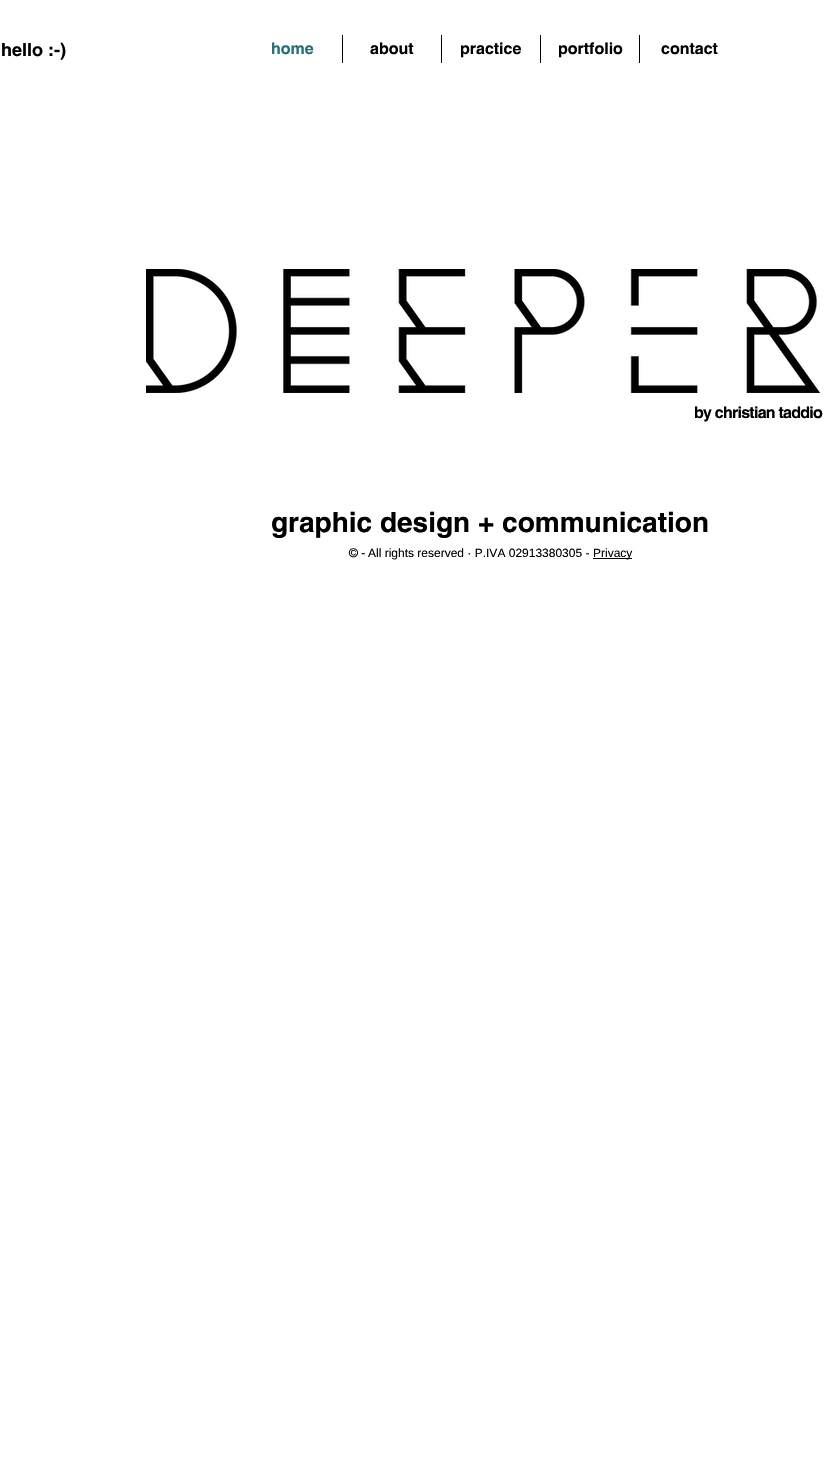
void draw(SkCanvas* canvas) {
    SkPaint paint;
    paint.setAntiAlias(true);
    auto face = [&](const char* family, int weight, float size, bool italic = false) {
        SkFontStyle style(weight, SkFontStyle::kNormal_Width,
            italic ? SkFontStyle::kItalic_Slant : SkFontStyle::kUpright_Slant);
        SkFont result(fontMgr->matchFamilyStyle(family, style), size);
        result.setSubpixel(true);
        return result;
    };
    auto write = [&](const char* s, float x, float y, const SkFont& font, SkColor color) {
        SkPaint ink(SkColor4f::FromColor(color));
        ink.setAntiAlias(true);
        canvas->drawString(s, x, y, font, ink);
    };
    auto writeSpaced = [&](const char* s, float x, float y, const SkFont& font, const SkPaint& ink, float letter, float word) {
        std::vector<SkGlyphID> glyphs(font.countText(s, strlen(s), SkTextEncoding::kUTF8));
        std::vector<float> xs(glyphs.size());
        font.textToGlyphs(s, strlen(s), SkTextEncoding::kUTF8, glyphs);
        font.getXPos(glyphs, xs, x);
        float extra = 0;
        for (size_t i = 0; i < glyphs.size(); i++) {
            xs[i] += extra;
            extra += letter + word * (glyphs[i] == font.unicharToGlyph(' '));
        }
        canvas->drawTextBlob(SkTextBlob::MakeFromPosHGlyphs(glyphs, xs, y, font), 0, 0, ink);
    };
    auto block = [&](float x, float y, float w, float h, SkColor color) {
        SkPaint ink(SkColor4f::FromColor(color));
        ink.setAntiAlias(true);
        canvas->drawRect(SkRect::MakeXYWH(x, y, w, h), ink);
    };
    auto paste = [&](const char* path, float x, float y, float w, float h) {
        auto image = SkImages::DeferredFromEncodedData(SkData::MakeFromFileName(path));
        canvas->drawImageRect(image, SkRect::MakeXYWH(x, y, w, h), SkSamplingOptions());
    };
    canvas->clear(SK_ColorWHITE);
    auto kFont1 = face("helvetica", 700, 18);
    write("hello :-)", 1, 56, kFont1, SK_ColorBLACK);
    auto kFont2 = face("helvetica", 700, 16);
    write("home", 271, 54, kFont2, SkColorSetRGB(38, 111, 119));
    block(342, 35, 1, 28, SK_ColorBLACK);
    write("about", 370, 54, kFont2, SK_ColorBLACK);
    block(441, 35, 1, 28, SK_ColorBLACK);
    write("practice", 460, 54, kFont2, SK_ColorBLACK);
    block(540, 35, 1, 28, SK_ColorBLACK);
    write("portfolio", 558, 54, kFont2, SK_ColorBLACK);
    block(639, 35, 1, 28, SK_ColorBLACK);
    write("contact", 661, 54, kFont2, SK_ColorBLACK);
    paste("pic1.png", 146, 269, 674, 124);
    paint.setColor(SK_ColorBLACK);
    writeSpaced("by christian taddio", 694, 418, kFont2, paint, -0.75f, 0);
    auto kFont3 = face("helvetica", 700, 28);
    write("graphic design + communication", 271, 532, kFont3, SK_ColorBLACK);
    auto kFont4 = face("helvetica", 400, 12);
    write("© -", 349, 557, kFont4, SK_ColorBLACK);
    auto kFont5 = face("Liberation Sans", 400, 12);
    write("All rights reserved · P.IVA 02913380305 -", 368, 557, kFont5, SK_ColorBLACK);
    block(593, 558, 39, 1, SK_ColorBLACK);
    write("Privacy", 593, 557, kFont5, SK_ColorBLACK);
}
